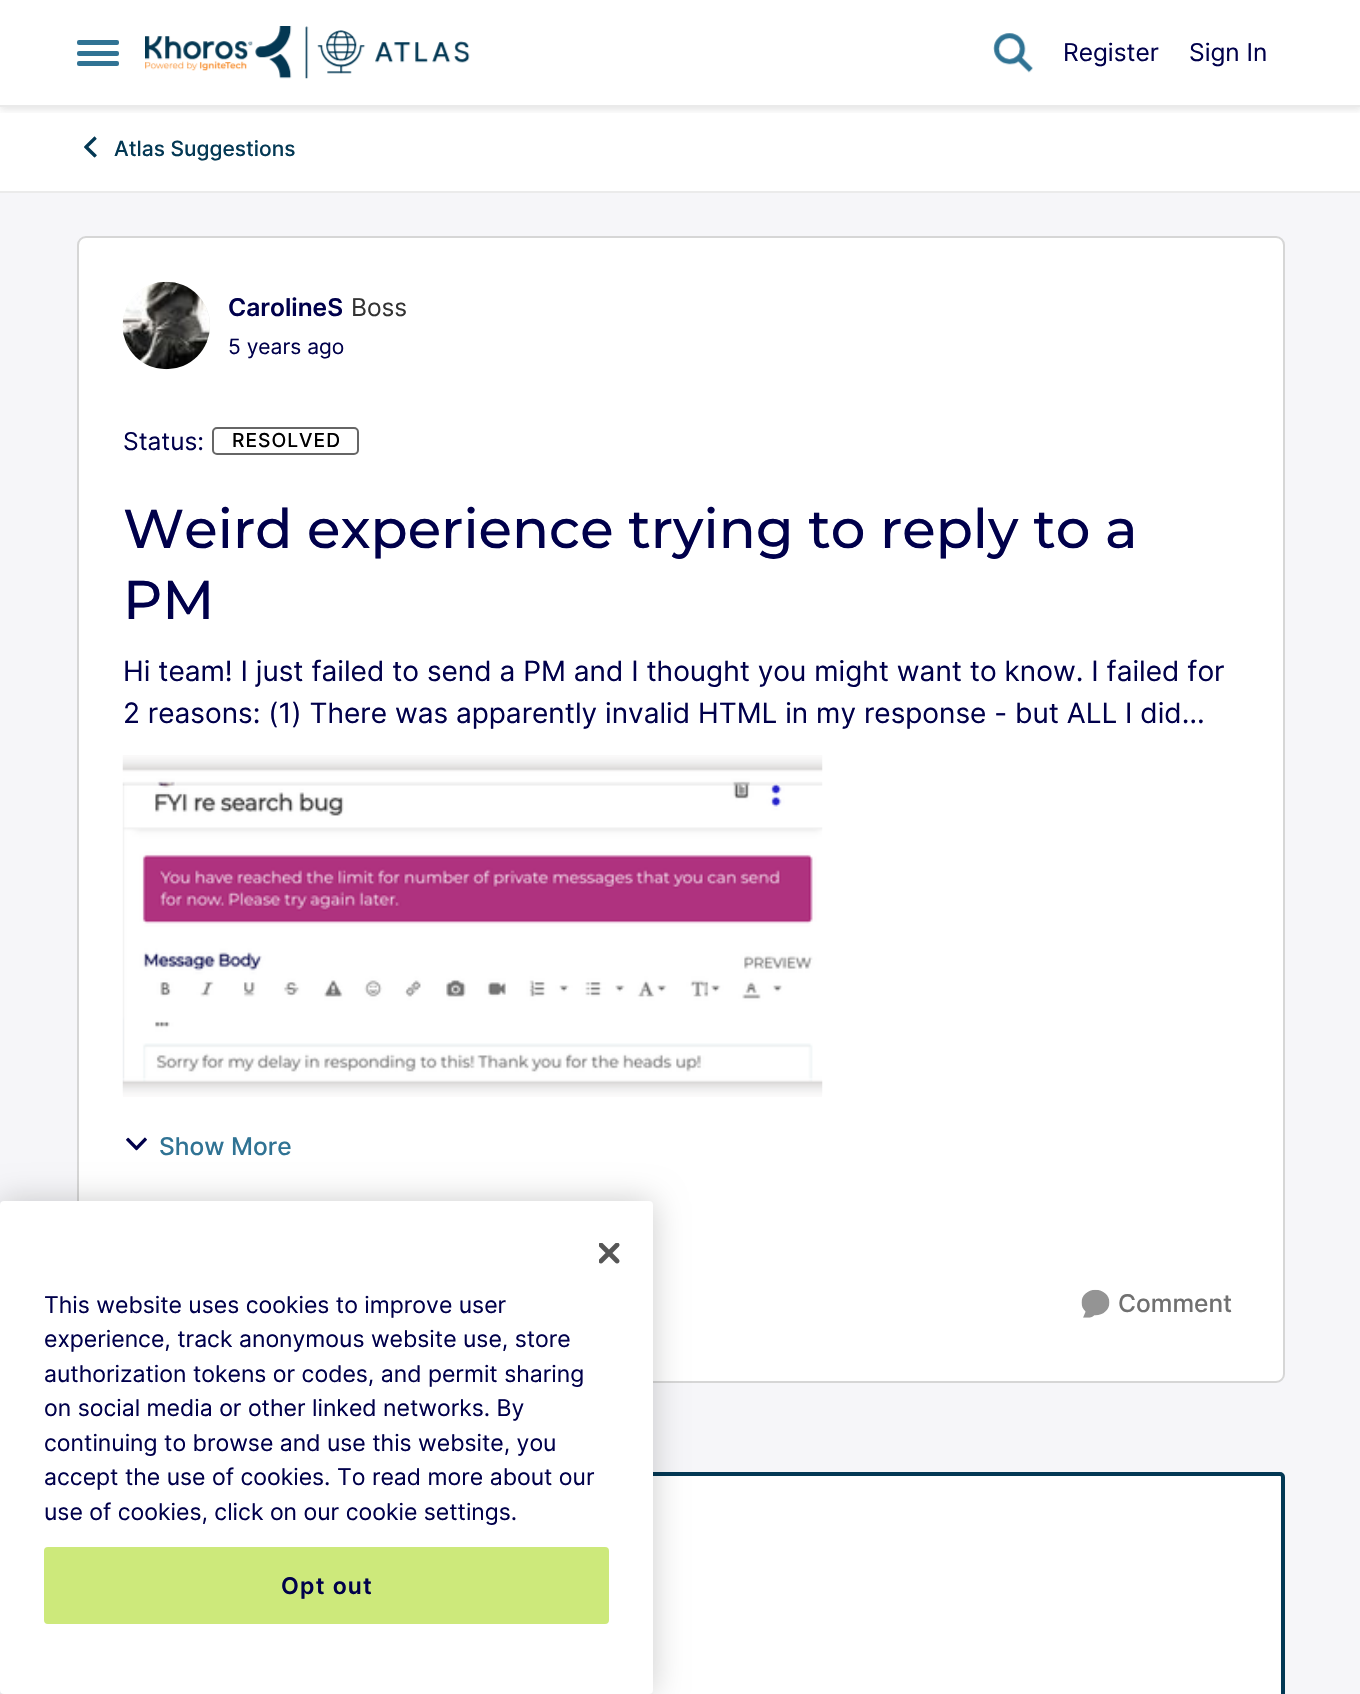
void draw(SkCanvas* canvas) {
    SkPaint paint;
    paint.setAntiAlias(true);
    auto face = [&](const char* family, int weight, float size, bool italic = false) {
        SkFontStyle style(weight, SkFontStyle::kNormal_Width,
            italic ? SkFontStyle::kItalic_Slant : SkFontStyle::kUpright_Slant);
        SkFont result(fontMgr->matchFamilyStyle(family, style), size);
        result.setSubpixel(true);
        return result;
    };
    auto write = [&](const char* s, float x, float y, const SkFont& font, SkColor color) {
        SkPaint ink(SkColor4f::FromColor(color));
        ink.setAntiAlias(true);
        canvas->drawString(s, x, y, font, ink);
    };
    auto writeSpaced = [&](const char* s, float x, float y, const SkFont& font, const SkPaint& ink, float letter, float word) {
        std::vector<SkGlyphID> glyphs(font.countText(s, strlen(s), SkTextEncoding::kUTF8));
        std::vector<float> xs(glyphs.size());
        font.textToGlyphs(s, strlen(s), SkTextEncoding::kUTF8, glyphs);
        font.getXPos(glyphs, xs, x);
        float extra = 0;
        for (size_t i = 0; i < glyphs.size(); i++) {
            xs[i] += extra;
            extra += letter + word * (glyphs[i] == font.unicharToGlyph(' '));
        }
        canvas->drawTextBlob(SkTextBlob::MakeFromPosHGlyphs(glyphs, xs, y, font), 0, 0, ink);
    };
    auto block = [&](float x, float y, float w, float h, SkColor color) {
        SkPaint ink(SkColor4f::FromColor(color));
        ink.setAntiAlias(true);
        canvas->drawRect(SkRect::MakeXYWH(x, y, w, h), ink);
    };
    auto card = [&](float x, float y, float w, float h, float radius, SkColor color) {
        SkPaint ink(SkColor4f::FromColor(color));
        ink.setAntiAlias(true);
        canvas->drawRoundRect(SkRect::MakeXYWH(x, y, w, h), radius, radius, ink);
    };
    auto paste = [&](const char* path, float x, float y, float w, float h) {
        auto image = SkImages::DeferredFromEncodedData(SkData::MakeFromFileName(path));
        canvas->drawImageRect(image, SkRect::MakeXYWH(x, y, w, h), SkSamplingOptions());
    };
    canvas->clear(SkColorSetRGB(246, 246, 249));
    block(0, 0, 1360, 191, SK_ColorWHITE);
    canvas->save();
    canvas->clipRect(SkRect::MakeXYWH(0, 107, 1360, 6));
    paint.setColor(SkColorSetARGB(31, 51, 51, 51));
    paint.setMaskFilter(SkMaskFilter::MakeBlur(kNormal_SkBlurStyle, 3.5f));
    canvas->drawRect(SkRect::MakeXYWH(0, 4, 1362, 106), paint);
    paint.setMaskFilter(nullptr);
    canvas->restore();
    block(0, 105, 1360, 2, SkColorSetRGB(234, 234, 234));
    card(77, 40, 42, 5, 2, SkColorSetRGB(48, 115, 148));
    card(77, 51, 42, 5, 2, SkColorSetRGB(48, 115, 148));
    card(77, 61, 42, 5, 2, SkColorSetRGB(48, 115, 148));
    paste("pic1.png", 145, 26, 325, 53);
    paste("pic2.png", 993, 33, 40, 40);
    auto kFont1 = face("Inter", 400, 24.5f);
    write("Register", 1063, 61, kFont1, SkColorSetRGB(0, 0, 75));
    write("Sign In", 1189, 61, kFont1, SkColorSetRGB(0, 0, 75));
    block(0, 191, 1360, 2, SkColorSetRGB(235, 235, 235));
    paste("pic3.png", 84, 136, 13, 22);
    auto kFont2 = face("Inter", 500, 21);
    write("Atlas Suggestions", 114, 156, kFont2, SkColorSetRGB(3, 56, 84));
    card(77, 236, 1208, 1147, 9, SK_ColorWHITE);
    paint.setStyle(SkPaint::kStroke_Style);
    paint.setStrokeWidth(2);
    paint.setColor(SkColorSetARGB(41, 0, 0, 0));
    canvas->drawRoundRect(SkRect::MakeXYWH(78, 237, 1206, 1145), 8, 8, paint);
    paint.setStyle(SkPaint::kFill_Style);
    paint.setColor(SkColorSetRGB(217, 217, 217));
    canvas->drawCircle(166.5f, 325.5f, 43.5f, paint);
    paste("pic4.png", 122, 281, 88, 89);
    auto kFont3 = face("Inter", 600, 24.5f);
    write("CarolineS", 228, 316, kFont3, SkColorSetRGB(0, 0, 75));
    write("Boss", 351, 316, kFont1, SkColorSetRGB(51, 51, 51));
    auto kFont4 = face("Inter", 400, 21);
    write("5 years ago", 228, 354, kFont4, SkColorSetRGB(0, 0, 75));
    write("Status:", 123, 450, kFont1, SkColorSetRGB(0, 0, 75));
    paint.setStyle(SkPaint::kStroke_Style);
    paint.setColor(SkColorSetRGB(102, 102, 102));
    canvas->drawRoundRect(SkRect::MakeXYWH(213, 428, 145, 26), 4, 4, paint);
    auto kFont5 = face("Inter", 500, 19.25f);
    paint.setStyle(SkPaint::kFill_Style);
    paint.setColor(SK_ColorBLACK);
    writeSpaced("RESOLVED", 232, 447, kFont5, paint, 1, 0);
    auto kFont6 = face("Montserrat", 500, 54.5f);
    write("Weird experience trying to reply to a", 123, 548, kFont6, SkColorSetRGB(0, 0, 75));
    write("PM", 123, 619, kFont6, SkColorSetRGB(0, 0, 75));
    auto kFont7 = face("Inter", 400, 28);
    write("Hi team! I just failed to send a PM and I thought you might want to know. I failed for", 123, 681, kFont7, SkColorSetRGB(0, 0, 75));
    write("2 reasons: (1) There was apparently invalid HTML in my response - but ALL I did…", 123, 723, kFont7, SkColorSetRGB(0, 0, 75));
    paste("pic5.png", 122, 755, 701, 342);
    paste("pic6.png", 126, 1137, 21, 14);
    auto kFont8 = face("Inter", 500, 24.5f);
    write("Show More", 159, 1155, kFont8, SkColorSetRGB(48, 115, 148));
    paste("pic7.png", 1081, 1289, 29, 29);
    write("Comment", 1118, 1312, kFont8, SkColorSetRGB(112, 112, 112));
    paint.setColor(SK_ColorWHITE);
    canvas->drawRoundRect(SkRect::MakeXYWH(79, 1474, 1204, 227), 3, 3, paint);
    paint.setStyle(SkPaint::kStroke_Style);
    paint.setStrokeWidth(4);
    paint.setColor(SkColorSetRGB(3, 56, 84));
    canvas->drawRoundRect(SkRect::MakeXYWH(79, 1474, 1204, 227), 3, 3, paint);
    paint.setStyle(SkPaint::kFill_Style);
    paint.setColor(SkColorSetARGB(51, 0, 0, 0));
    paint.setMaskFilter(SkMaskFilter::MakeBlur(kNormal_SkBlurStyle, 16));
    canvas->drawRoundRect(SkRect::MakeXYWH(0, 1201, 653, 493), 4, 4, paint);
    paint.setMaskFilter(nullptr);
    card(0, 1201, 653, 493, 4, SK_ColorWHITE);
    paste("pic8.png", 599, 1243, 21, 21);
    auto kFont9 = face("Inter", 400, 23);
    write("This website uses cookies to improve user", 44, 1313, kFont9, SkColorSetRGB(0, 0, 75));
    write("experience, track anonymous website use, store", 44, 1347, kFont9, SkColorSetRGB(0, 0, 75));
    write("authorization tokens or codes, and permit sharing", 44, 1382, kFont9, SkColorSetRGB(0, 0, 75));
    write("on social media or other linked networks. By", 44, 1416, kFont9, SkColorSetRGB(0, 0, 75));
    write("continuing to browse and use this website, you", 44, 1451, kFont9, SkColorSetRGB(0, 0, 75));
    write("accept the use of cookies. To read more about our", 44, 1485, kFont9, SkColorSetRGB(0, 0, 75));
    write("use of cookies, click on our cookie settings.", 44, 1520, kFont9, SkColorSetRGB(0, 0, 75));
    paint.setColor(SkColorSetRGB(205, 233, 123));
    canvas->drawRoundRect(SkRect::MakeXYWH(45, 1548, 563, 75), 3, 3, paint);
    paint.setStyle(SkPaint::kStroke_Style);
    paint.setStrokeWidth(2);
    canvas->drawRoundRect(SkRect::MakeXYWH(45, 1548, 563, 75), 3, 3, paint);
    auto kFont10 = face("Inter", 600, 23);
    paint.setStyle(SkPaint::kFill_Style);
    paint.setColor(SkColorSetRGB(0, 0, 75));
    writeSpaced("Opt out", 281, 1594, kFont10, paint, 1.25f, 0);
}
